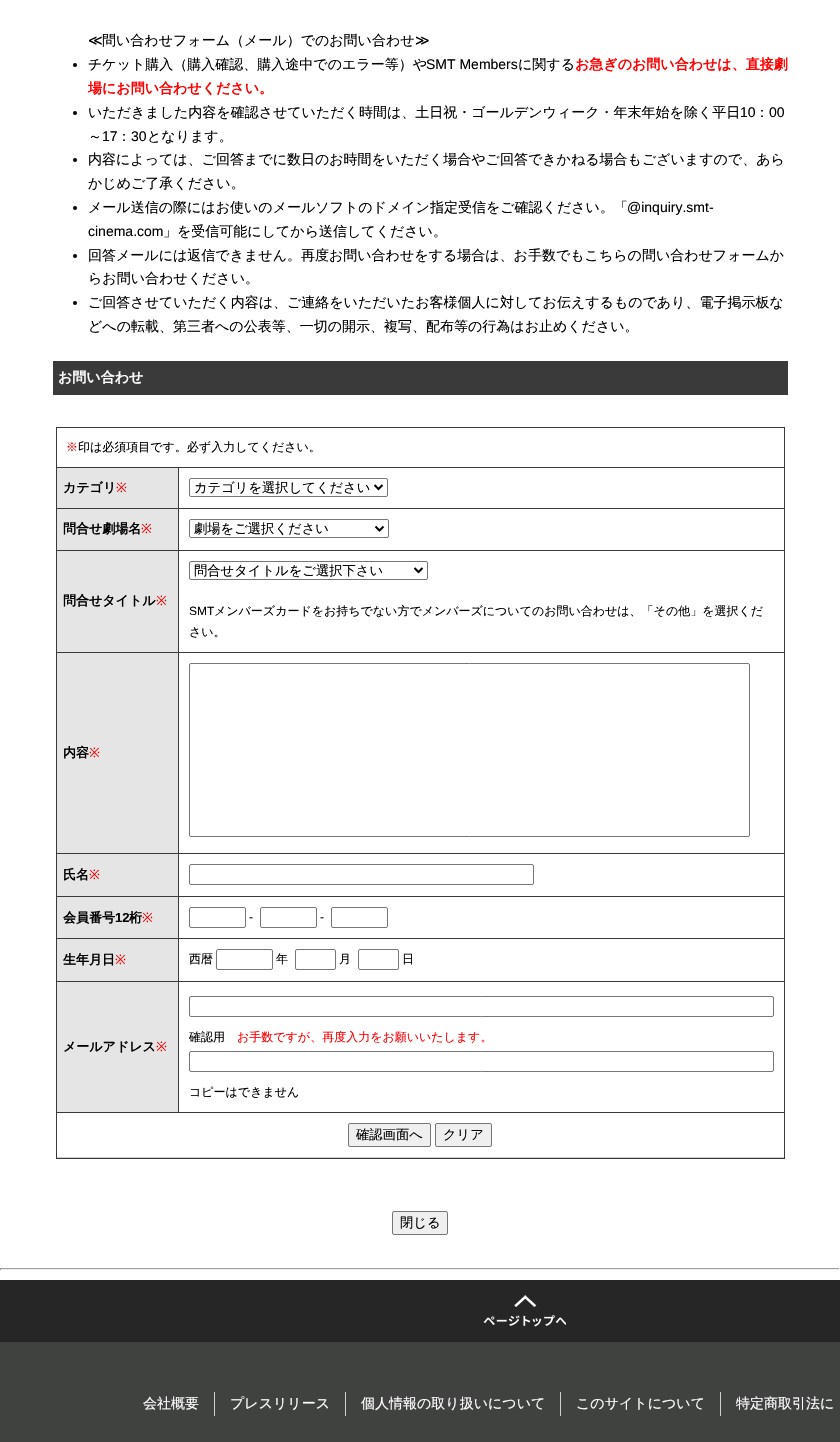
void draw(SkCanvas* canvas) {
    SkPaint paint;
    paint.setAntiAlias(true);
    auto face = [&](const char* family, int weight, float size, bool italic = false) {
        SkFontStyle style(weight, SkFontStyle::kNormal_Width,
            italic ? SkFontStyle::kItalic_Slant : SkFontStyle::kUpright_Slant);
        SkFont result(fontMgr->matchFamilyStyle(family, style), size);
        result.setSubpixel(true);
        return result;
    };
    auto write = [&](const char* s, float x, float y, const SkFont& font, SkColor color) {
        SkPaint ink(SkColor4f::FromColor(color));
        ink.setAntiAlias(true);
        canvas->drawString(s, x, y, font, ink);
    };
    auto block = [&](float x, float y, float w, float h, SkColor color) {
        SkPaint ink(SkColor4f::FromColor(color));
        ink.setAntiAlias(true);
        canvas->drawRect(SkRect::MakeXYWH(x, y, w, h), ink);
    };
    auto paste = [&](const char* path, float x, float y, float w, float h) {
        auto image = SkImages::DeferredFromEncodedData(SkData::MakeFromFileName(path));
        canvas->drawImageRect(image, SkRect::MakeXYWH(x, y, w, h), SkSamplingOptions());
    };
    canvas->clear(SK_ColorWHITE);
    auto kFont1 = face("DejaVu Sans", 400, 14);
    write("≪", 88, 45, kFont1, SK_ColorBLACK);
    auto kFont2 = face("WenQuanYi Zen Hei", 500, 14);
    write("問い合わせフォーム（メール）でのお問い合わせ", 102, 45, kFont2, SK_ColorBLACK);
    write("≫", 415, 45, kFont1, SK_ColorBLACK);
    paint.setColor(SK_ColorBLACK);
    canvas->drawCircle(75, 65, 2, paint);
    write("チケット購入（購入確認、購入途中でのエラー等）や", 88, 69, kFont2, SK_ColorBLACK);
    auto kFont3 = face("Liberation Sans", 400, 14);
    write("SMT Members", 426, 69, kFont3, SK_ColorBLACK);
    write("に関する", 518, 69, kFont2, SK_ColorBLACK);
    auto kFont4 = face("WenQuanYi Zen Hei", 700, 14);
    write("お急ぎのお問い合わせは、直接劇", 575, 69, kFont4, SkColorSetRGB(255, 0, 0));
    write("場にお問い合わせください。", 88, 93, kFont4, SkColorSetRGB(255, 0, 0));
    canvas->drawCircle(75, 113, 2, paint);
    write("いただきました内容を確認させていただく時間は、土日祝・ゴールデンウィーク・年末年始を除く平日", 88, 117, kFont2, SK_ColorBLACK);
    write("10", 740, 117, kFont3, SK_ColorBLACK);
    write("：", 755, 117, kFont2, SK_ColorBLACK);
    write("00", 769, 117, kFont3, SK_ColorBLACK);
    write("～", 88, 141, kFont2, SK_ColorBLACK);
    write("17", 102, 141, kFont3, SK_ColorBLACK);
    write("：", 117, 141, kFont2, SK_ColorBLACK);
    write("30", 131, 141, kFont3, SK_ColorBLACK);
    write("となります。", 147, 141, kFont2, SK_ColorBLACK);
    canvas->drawCircle(75, 160, 2, paint);
    write("内容によっては、ご回答までに数日のお時間をいただく場合やご回答できかねる場合もございますので、あら", 88, 164, kFont2, SK_ColorBLACK);
    write("かじめご了承ください。", 88, 188, kFont2, SK_ColorBLACK);
    canvas->drawCircle(75, 208, 2, paint);
    write("メール送信の際にはお使いのメールソフトのドメイン指定受信をご確認ください。「", 88, 212, kFont2, SK_ColorBLACK);
    write("@inquiry.smt-", 627, 212, kFont3, SK_ColorBLACK);
    write("cinema.com", 88, 236, kFont3, SK_ColorBLACK);
    write("」を受信可能にしてから送信してください。", 163, 236, kFont2, SK_ColorBLACK);
    canvas->drawCircle(75, 256, 2, paint);
    write("回答メールには返信できません。再度お問い合わせをする場合は、お手数でもこちらの問い合わせフォームか", 88, 260, kFont2, SK_ColorBLACK);
    write("らお問い合わせください。", 88, 283, kFont2, SK_ColorBLACK);
    canvas->drawCircle(75, 303, 2, paint);
    write("ご回答させていただく内容は、ご連絡をいただいたお客様個人に対してお伝えするものであり、電子掲示板な", 88, 307, kFont2, SK_ColorBLACK);
    write("どへの転載、第三者への公表等、一切の開示、複写、配布等の行為はお止めください。", 88, 331, kFont2, SK_ColorBLACK);
    block(53, 361, 735, 34, SkColorSetRGB(57, 58, 57));
    write("お問い合わせ", 58, 382, kFont4, SK_ColorWHITE);
    paint.setStyle(SkPaint::kStroke_Style);
    paint.setStrokeWidth(1);
    paint.setColor(SkColorSetRGB(57, 58, 57));
    canvas->drawRect(SkRect::MakeXYWH(56.5f, 427.5f, 728, 731), paint);
    block(57, 467, 727, 1, SkColorSetRGB(57, 58, 57));
    auto kFont5 = face("WenQuanYi Zen Hei", 500, 12);
    write("※", 66, 451, kFont5, SkColorSetRGB(238, 0, 0));
    write("印は必須項目です。必ず入力してください。", 78, 451, kFont5, SK_ColorBLACK);
    block(57, 468, 121, 40, SkColorSetRGB(229, 229, 230));
    block(178, 468, 1, 645, SkColorSetRGB(57, 58, 57));
    block(57, 508, 727, 1, SkColorSetRGB(57, 58, 57));
    auto kFont6 = face("WenQuanYi Zen Hei", 700, 13);
    write("カテゴリ", 63, 492, kFont6, SK_ColorBLACK);
    auto kFont7 = face("Noto Sans", 400, 13);
    write("※", 116, 492, kFont7, SkColorSetRGB(238, 0, 0));
    paint.setColor(SkColorSetRGB(118, 118, 118));
    canvas->drawRoundRect(SkRect::MakeXYWH(189.5f, 478.5f, 198, 18), 1.5f, 1.5f, paint);
    paint.setStrokeWidth(2);
    paint.setColor(SK_ColorBLACK);
    canvas->drawPath(SkPathBuilder().moveTo(374.5f, 485).lineTo(378.5f, 489).lineTo(382.5f, 485).detach(), paint);
    auto kFont8 = face("WenQuanYi Zen Hei", 500, 13.3f);
    write("カテゴリを選択してください", 194, 492, kFont8, SK_ColorBLACK);
    block(57, 509, 121, 41, SkColorSetRGB(229, 229, 230));
    block(57, 550, 727, 1, SkColorSetRGB(57, 58, 57));
    write("問合せ劇場名", 63, 533, kFont6, SK_ColorBLACK);
    write("※", 141, 533, kFont7, SkColorSetRGB(238, 0, 0));
    paint.setStrokeWidth(1);
    paint.setColor(SkColorSetRGB(118, 118, 118));
    canvas->drawRoundRect(SkRect::MakeXYWH(189.5f, 519.5f, 199, 18), 1.5f, 1.5f, paint);
    paint.setStrokeWidth(2);
    paint.setColor(SK_ColorBLACK);
    canvas->drawPath(SkPathBuilder().moveTo(375.5f, 526.5f).lineTo(379.5f, 530.5f).lineTo(383.5f, 526.5f).detach(), paint);
    write("劇場をご選択ください", 194, 533, kFont8, SK_ColorBLACK);
    block(57, 551, 121, 101, SkColorSetRGB(229, 229, 230));
    block(57, 652, 727, 1, SkColorSetRGB(57, 58, 57));
    write("問合せタイトル", 63, 605, kFont6, SK_ColorBLACK);
    write("※", 156, 605, kFont7, SkColorSetRGB(238, 0, 0));
    paint.setStrokeWidth(1);
    paint.setColor(SkColorSetRGB(118, 118, 118));
    canvas->drawRoundRect(SkRect::MakeXYWH(189.5f, 561.5f, 238, 18), 1.5f, 1.5f, paint);
    paint.setStrokeWidth(2);
    paint.setColor(SK_ColorBLACK);
    canvas->drawPath(SkPathBuilder().moveTo(414.5f, 568).lineTo(418.5f, 572).lineTo(422.5f, 568).detach(), paint);
    write("問合せタイトルをご選択下さい", 194, 575, kFont8, SK_ColorBLACK);
    auto kFont9 = face("Liberation Sans", 400, 12);
    write("SMT", 189, 615, kFont9, SK_ColorBLACK);
    write("メンバーズカードをお持ちでない方でメンバーズについてのお問い合わせは、「その他」を選択くだ", 214, 615, kFont5, SK_ColorBLACK);
    write("さい。", 189, 636, kFont5, SK_ColorBLACK);
    block(57, 653, 121, 200, SkColorSetRGB(229, 229, 230));
    block(57, 853, 727, 1, SkColorSetRGB(57, 58, 57));
    write("内容", 63, 757, kFont6, SK_ColorBLACK);
    write("※", 89, 757, kFont7, SkColorSetRGB(238, 0, 0));
    paint.setStrokeWidth(1);
    paint.setColor(SkColorSetRGB(118, 118, 118));
    canvas->drawRoundRect(SkRect::MakeXYWH(189.5f, 663.5f, 560, 173), 1.5f, 1.5f, paint);
    block(57, 854, 121, 42, SkColorSetRGB(229, 229, 230));
    block(57, 896, 727, 1, SkColorSetRGB(57, 58, 57));
    write("氏名", 63, 879, kFont6, SK_ColorBLACK);
    write("※", 89, 879, kFont7, SkColorSetRGB(238, 0, 0));
    canvas->drawRoundRect(SkRect::MakeXYWH(189.5f, 864.5f, 344, 20), 1.5f, 1.5f, paint);
    block(57, 897, 121, 41, SkColorSetRGB(229, 229, 230));
    block(57, 938, 727, 1, SkColorSetRGB(57, 58, 57));
    write("会員番号", 63, 922, kFont6, SK_ColorBLACK);
    auto kFont10 = face("Liberation Sans", 700, 13);
    write("12", 115, 922, kFont10, SK_ColorBLACK);
    write("桁", 129, 922, kFont6, SK_ColorBLACK);
    write("※", 142, 922, kFont7, SkColorSetRGB(238, 0, 0));
    canvas->drawRoundRect(SkRect::MakeXYWH(189.5f, 907.5f, 56, 20), 1.5f, 1.5f, paint);
    write("-", 249, 921, kFont9, SK_ColorBLACK);
    canvas->drawRoundRect(SkRect::MakeXYWH(260.5f, 907.5f, 56, 20), 1.5f, 1.5f, paint);
    write("-", 320, 921, kFont9, SK_ColorBLACK);
    canvas->drawRoundRect(SkRect::MakeXYWH(331.5f, 907.5f, 56, 20), 1.5f, 1.5f, paint);
    block(57, 939, 121, 42, SkColorSetRGB(229, 229, 230));
    block(57, 981, 727, 1, SkColorSetRGB(57, 58, 57));
    write("生年月日", 63, 964, kFont6, SK_ColorBLACK);
    write("※", 115, 964, kFont7, SkColorSetRGB(238, 0, 0));
    write("西暦", 189, 963, kFont5, SK_ColorBLACK);
    canvas->drawRoundRect(SkRect::MakeXYWH(216.5f, 949.5f, 56, 20), 1.5f, 1.5f, paint);
    write("年", 276, 963, kFont5, SK_ColorBLACK);
    canvas->drawRoundRect(SkRect::MakeXYWH(295.5f, 949.5f, 40, 20), 1.5f, 1.5f, paint);
    write("月", 339, 963, kFont5, SK_ColorBLACK);
    canvas->drawRoundRect(SkRect::MakeXYWH(358.5f, 949.5f, 40, 20), 1.5f, 1.5f, paint);
    write("日", 402, 963, kFont5, SK_ColorBLACK);
    block(57, 982, 121, 130, SkColorSetRGB(229, 229, 230));
    block(57, 1112, 727, 1, SkColorSetRGB(57, 58, 57));
    write("メールアドレス", 63, 1051, kFont6, SK_ColorBLACK);
    write("※", 156, 1051, kFont7, SkColorSetRGB(238, 0, 0));
    canvas->drawRoundRect(SkRect::MakeXYWH(189.5f, 996.5f, 584, 20), 1.5f, 1.5f, paint);
    write("確認用", 189, 1041, kFont5, SK_ColorBLACK);
    write("お手数ですが、再度入力をお願いいたします。", 237, 1041, kFont5, SkColorSetRGB(255, 0, 0));
    canvas->drawRoundRect(SkRect::MakeXYWH(189.5f, 1051.5f, 584, 20), 1.5f, 1.5f, paint);
    write("コピーはできません", 189, 1096, kFont5, SK_ColorBLACK);
    block(57, 1157, 727, 1, SkColorSetRGB(204, 204, 204));
    paint.setStyle(SkPaint::kFill_Style);
    paint.setColor(SkColorSetRGB(239, 239, 239));
    canvas->drawRoundRect(SkRect::MakeXYWH(348.5f, 1123.5f, 82, 23), 1.5f, 1.5f, paint);
    paint.setStyle(SkPaint::kStroke_Style);
    paint.setColor(SkColorSetRGB(118, 118, 118));
    canvas->drawRoundRect(SkRect::MakeXYWH(348.5f, 1123.5f, 82, 23), 1.5f, 1.5f, paint);
    write("確認画面へ", 356, 1139, kFont8, SK_ColorBLACK);
    paint.setStyle(SkPaint::kFill_Style);
    paint.setColor(SkColorSetRGB(239, 239, 239));
    canvas->drawRoundRect(SkRect::MakeXYWH(435.5f, 1123.5f, 56, 23), 1.5f, 1.5f, paint);
    paint.setStyle(SkPaint::kStroke_Style);
    paint.setColor(SkColorSetRGB(118, 118, 118));
    canvas->drawRoundRect(SkRect::MakeXYWH(435.5f, 1123.5f, 56, 23), 1.5f, 1.5f, paint);
    write("クリア", 443, 1139, kFont8, SK_ColorBLACK);
    paint.setStyle(SkPaint::kFill_Style);
    paint.setColor(SkColorSetRGB(239, 239, 239));
    canvas->drawRoundRect(SkRect::MakeXYWH(392.5f, 1211.5f, 55, 23), 1.5f, 1.5f, paint);
    paint.setStyle(SkPaint::kStroke_Style);
    paint.setColor(SkColorSetRGB(118, 118, 118));
    canvas->drawRoundRect(SkRect::MakeXYWH(392.5f, 1211.5f, 55, 23), 1.5f, 1.5f, paint);
    write("閉じる", 400, 1227, kFont8, SK_ColorBLACK);
    block(0, 1268, 840, 1, SkColorSetRGB(159, 159, 159));
    block(839, 1268, 1, 2, SkColorSetRGB(238, 238, 238));
    block(0, 1269, 840, 1, SkColorSetRGB(238, 238, 238));
    block(0, 1268, 1, 2, SkColorSetRGB(159, 159, 159));
    block(0, 1280, 840, 62, SkColorSetRGB(37, 38, 37));
    paste("pic1.png", 483, 1295, 83, 32);
    block(0, 1342, 840, 100, SkColorSetRGB(64, 66, 64));
    block(214, 1392, 1, 24, SkColorSetRGB(207, 207, 207));
    write("会社概要", 143, 1408, kFont2, SK_ColorWHITE);
    block(345, 1392, 1, 24, SkColorSetRGB(207, 207, 207));
    write("プレスリリース", 230, 1408, kFont2, SK_ColorWHITE);
    block(560, 1392, 1, 24, SkColorSetRGB(207, 207, 207));
    write("個人情報の取り扱いについて", 361, 1408, kFont2, SK_ColorWHITE);
    block(720, 1392, 1, 24, SkColorSetRGB(207, 207, 207));
    write("このサイトについて", 576, 1408, kFont2, SK_ColorWHITE);
    write("特定商取引法に", 736, 1408, kFont2, SK_ColorWHITE);
}
